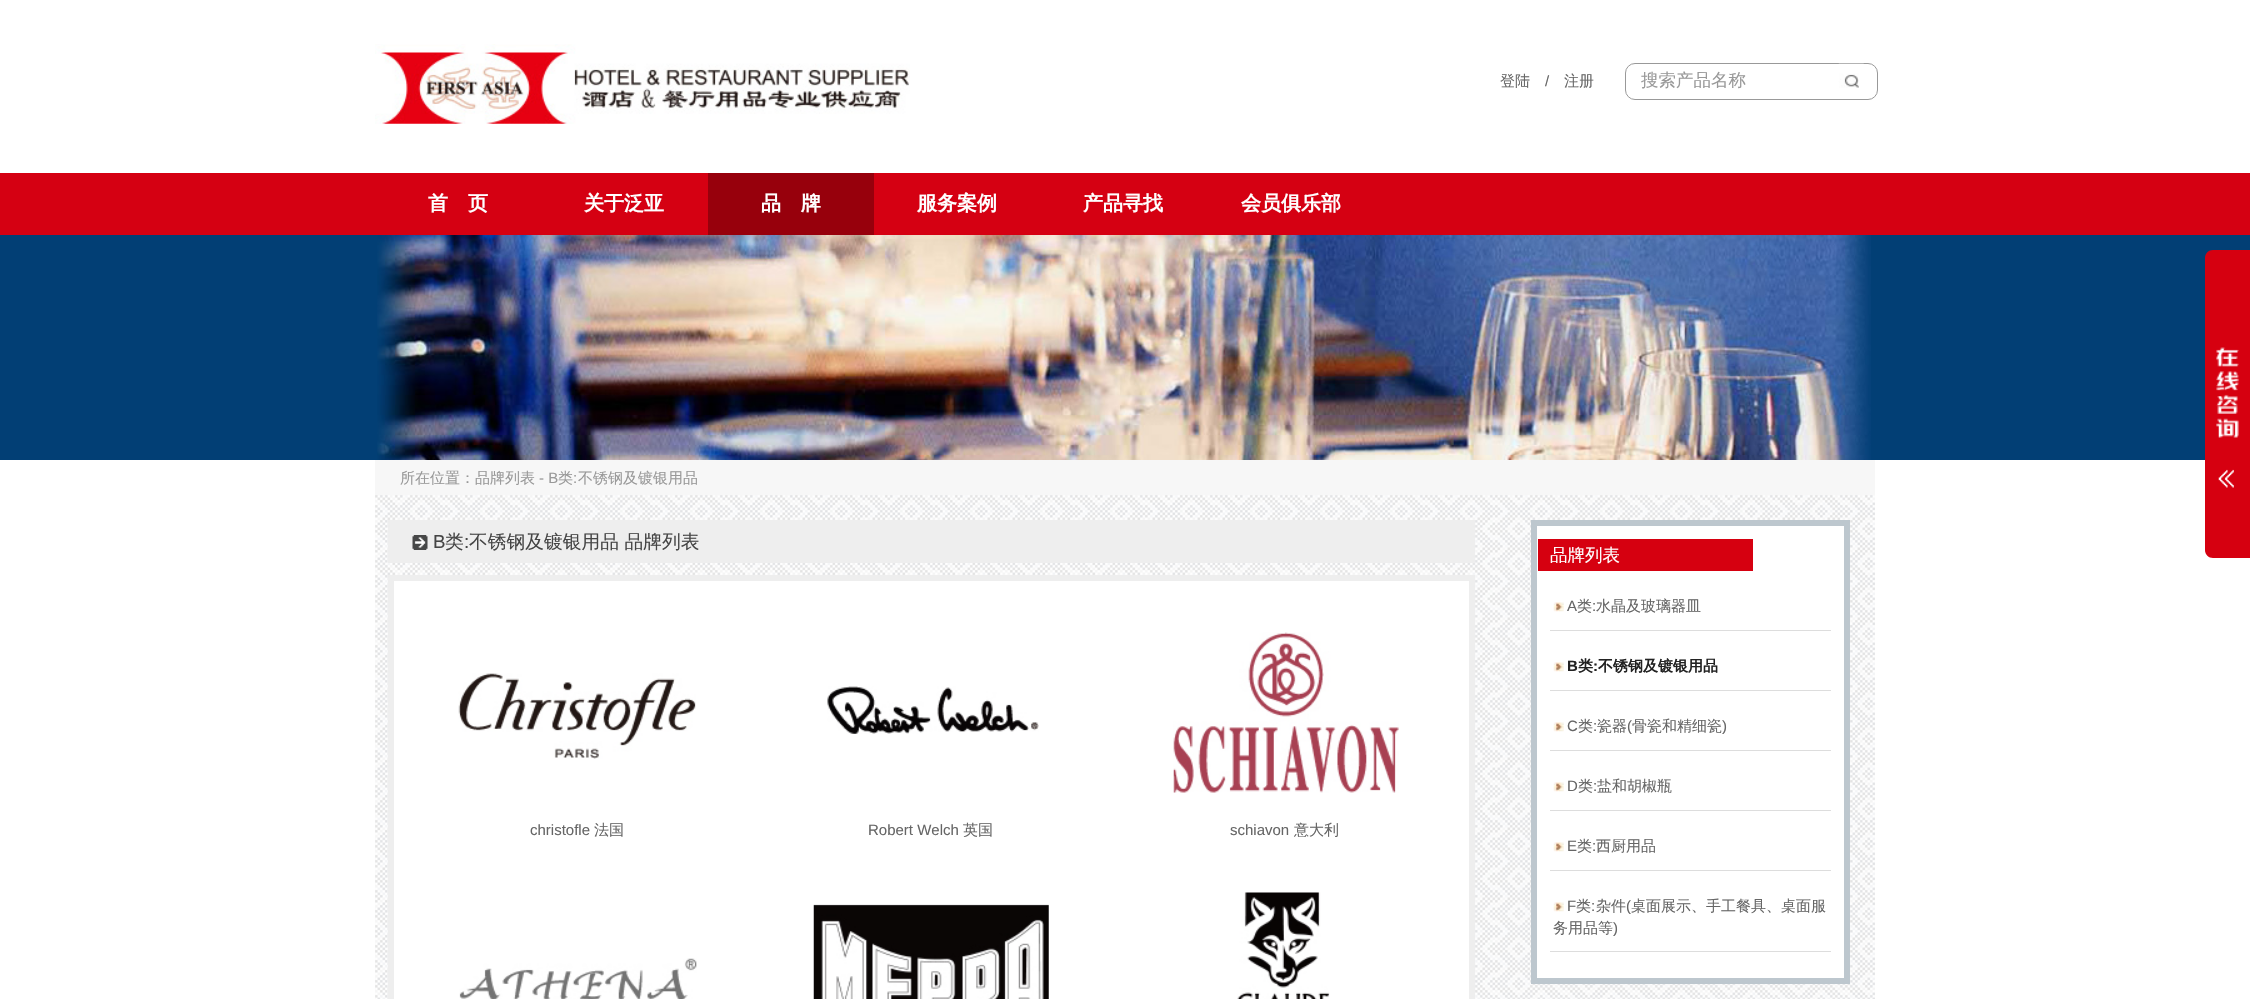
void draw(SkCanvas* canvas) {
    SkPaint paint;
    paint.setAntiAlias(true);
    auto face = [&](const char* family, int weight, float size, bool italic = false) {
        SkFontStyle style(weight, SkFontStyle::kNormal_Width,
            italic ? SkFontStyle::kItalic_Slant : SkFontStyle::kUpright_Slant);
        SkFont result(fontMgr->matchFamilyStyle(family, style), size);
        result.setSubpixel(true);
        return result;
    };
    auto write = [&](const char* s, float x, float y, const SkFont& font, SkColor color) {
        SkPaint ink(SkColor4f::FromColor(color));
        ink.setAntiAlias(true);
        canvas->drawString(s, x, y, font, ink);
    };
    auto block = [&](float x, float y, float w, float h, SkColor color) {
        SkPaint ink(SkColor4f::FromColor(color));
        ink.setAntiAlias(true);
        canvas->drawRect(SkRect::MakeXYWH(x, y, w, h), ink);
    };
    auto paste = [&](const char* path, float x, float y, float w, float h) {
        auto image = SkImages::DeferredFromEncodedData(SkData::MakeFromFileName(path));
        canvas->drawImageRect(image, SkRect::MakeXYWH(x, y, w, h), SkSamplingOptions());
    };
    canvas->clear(SK_ColorWHITE);
    paste("pic1.png", 375, 44, 535, 80);
    auto kFont1 = face("WenQuanYi Zen Hei", 500, 15);
    write("登陆", 1500, 86, kFont1, SkColorSetRGB(102, 102, 102));
    auto kFont2 = face("Liberation Sans", 400, 15);
    write("/", 1545, 86, kFont2, SkColorSetRGB(102, 102, 102));
    write("注册", 1564, 86, kFont1, SkColorSetRGB(102, 102, 102));
    paint.setStyle(SkPaint::kStroke_Style);
    paint.setStrokeWidth(1);
    paint.setColor(SkColorSetRGB(153, 153, 153));
    canvas->drawRoundRect(SkRect::MakeXYWH(1625.5f, 63.5f, 252, 36), 9.5f, 9.5f, paint);
    auto kFont3 = face("WenQuanYi Zen Hei", 500, 17.5f);
    write("搜索产品名称", 1641, 86, kFont3, SkColorSetRGB(153, 153, 153));
    paste("pic2.png", 1838, 63, 26, 25);
    block(0, 173, 2250, 62, SkColorSetRGB(213, 0, 18));
    auto kFont4 = face("WenQuanYi Zen Hei", 700, 20);
    write("首　页", 428, 210, kFont4, SK_ColorWHITE);
    write("关于泛亚", 584, 210, kFont4, SK_ColorWHITE);
    block(708, 173, 166, 62, SkColorSetRGB(151, 0, 12));
    write("品　牌", 761, 210, kFont4, SK_ColorWHITE);
    write("服务案例", 917, 210, kFont4, SK_ColorWHITE);
    write("产品寻找", 1083, 210, kFont4, SK_ColorWHITE);
    write("会员俱乐部", 1241, 210, kFont4, SK_ColorWHITE);
    block(0, 235, 2250, 225, SkColorSetRGB(2, 63, 117));
    paste("pic3.png", 377, 235, 1494, 225);
    paint.setStyle(SkPaint::kFill_Style);
    paint.setColor(SkColorSetRGB(214, 0, 16));
    canvas->drawPath(SkPathBuilder().moveTo(2213, 250).lineTo(2250, 250).lineTo(2250, 558).lineTo(2213, 558).cubicTo(2208.5f, 558, 2205, 554.5f, 2205, 550).lineTo(2205, 258).cubicTo(2205, 253.5f, 2208.5f, 250, 2213, 250).close().detach(), paint);
    paste("pic4.png", 2216, 347, 23, 141);
    paste("pic5.png", 375, 495, 1500, 504);
    block(375, 460, 1500, 35, SkColorSetRGB(247, 247, 247));
    write("所在位置：品牌列表", 400, 483, kFont1, SkColorSetRGB(153, 153, 153));
    write("- B", 539, 483, kFont2, SkColorSetRGB(153, 153, 153));
    write("类", 558, 483, kFont1, SkColorSetRGB(153, 153, 153));
    write(":", 573, 483, kFont2, SkColorSetRGB(153, 153, 153));
    write("不锈钢及镀银用品", 578, 483, kFont1, SkColorSetRGB(153, 153, 153));
    block(388, 520, 1087, 43, SkColorSetRGB(238, 238, 238));
    paste("pic6.png", 412, 535, 16, 15);
    auto kFont5 = face("Liberation Sans", 400, 18.75f);
    write("B", 433, 548, kFont5, SkColorSetRGB(69, 69, 69));
    auto kFont6 = face("WenQuanYi Zen Hei", 500, 18.75f);
    write("类", 445, 548, kFont6, SkColorSetRGB(69, 69, 69));
    write(":", 464, 548, kFont5, SkColorSetRGB(69, 69, 69));
    write("不锈钢及镀银用品 品牌列表", 469, 548, kFont6, SkColorSetRGB(69, 69, 69));
    paint.setColor(SK_ColorWHITE);
    canvas->drawRect(SkRect::MakeXYWH(391, 578, 1081, 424), paint);
    paint.setStyle(SkPaint::kStroke_Style);
    paint.setStrokeWidth(6);
    paint.setColor(SkColorSetRGB(238, 238, 238));
    canvas->drawRect(SkRect::MakeXYWH(391, 578, 1081, 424), paint);
    paste("pic7.png", 458, 673, 238, 86);
    write("christofle", 530, 835, kFont2, SkColorSetRGB(102, 102, 102));
    write("法国", 594, 835, kFont1, SkColorSetRGB(102, 102, 102));
    paste("pic8.png", 827, 686, 212, 48);
    write("Robert Welch", 868, 835, kFont2, SkColorSetRGB(102, 102, 102));
    write("英国", 963, 835, kFont1, SkColorSetRGB(102, 102, 102));
    paste("pic9.png", 1173, 632, 226, 161);
    write("schiavon", 1230, 835, kFont2, SkColorSetRGB(102, 102, 102));
    write("意大利", 1294, 835, kFont1, SkColorSetRGB(102, 102, 102));
    paste("pic10.png", 459, 958, 238, 41);
    paste("pic11.png", 813, 904, 236, 95);
    paste("pic12.png", 1237, 892, 93, 107);
    paint.setStyle(SkPaint::kFill_Style);
    paint.setColor(SK_ColorWHITE);
    canvas->drawRect(SkRect::MakeXYWH(1534, 523, 313, 458), paint);
    paint.setStyle(SkPaint::kStroke_Style);
    paint.setColor(SkColorSetRGB(189, 199, 206));
    canvas->drawRect(SkRect::MakeXYWH(1534, 523, 313, 458), paint);
    block(1538, 539, 215, 32, SkColorSetRGB(214, 0, 16));
    write("品牌列表", 1550, 561, kFont3, SK_ColorWHITE);
    paste("pic13.png", 1553, 602, 11, 10);
    write("A", 1567, 611, kFont2, SkColorSetRGB(102, 102, 102));
    write("类", 1577, 611, kFont1, SkColorSetRGB(102, 102, 102));
    write(":", 1592, 611, kFont2, SkColorSetRGB(102, 102, 102));
    write("水晶及玻璃器皿", 1596, 611, kFont1, SkColorSetRGB(102, 102, 102));
    block(1550, 630, 281, 1, SkColorSetRGB(221, 221, 221));
    paste("pic13.png", 1553, 662, 11, 10);
    auto kFont7 = face("Liberation Sans", 700, 15);
    write("B", 1567, 671, kFont7, SkColorSetRGB(34, 34, 34));
    auto kFont8 = face("WenQuanYi Zen Hei", 700, 15);
    write("类", 1578, 671, kFont8, SkColorSetRGB(34, 34, 34));
    write(":", 1593, 671, kFont7, SkColorSetRGB(34, 34, 34));
    write("不锈钢及镀银用品", 1598, 671, kFont8, SkColorSetRGB(34, 34, 34));
    block(1550, 690, 281, 1, SkColorSetRGB(221, 221, 221));
    paste("pic13.png", 1553, 722, 11, 10);
    write("C", 1567, 731, kFont2, SkColorSetRGB(102, 102, 102));
    write("类", 1578, 731, kFont1, SkColorSetRGB(102, 102, 102));
    write(":", 1593, 731, kFont2, SkColorSetRGB(102, 102, 102));
    write("瓷器", 1597, 731, kFont1, SkColorSetRGB(102, 102, 102));
    write("(", 1627, 731, kFont2, SkColorSetRGB(102, 102, 102));
    write("骨瓷和精细瓷", 1632, 731, kFont1, SkColorSetRGB(102, 102, 102));
    write(")", 1722, 731, kFont2, SkColorSetRGB(102, 102, 102));
    block(1550, 750, 281, 1, SkColorSetRGB(221, 221, 221));
    paste("pic13.png", 1553, 782, 11, 10);
    write("D", 1567, 791, kFont2, SkColorSetRGB(102, 102, 102));
    write("类", 1578, 791, kFont1, SkColorSetRGB(102, 102, 102));
    write(":", 1593, 791, kFont2, SkColorSetRGB(102, 102, 102));
    write("盐和胡椒瓶", 1597, 791, kFont1, SkColorSetRGB(102, 102, 102));
    block(1550, 810, 281, 1, SkColorSetRGB(221, 221, 221));
    paste("pic13.png", 1553, 842, 11, 10);
    write("E", 1567, 851, kFont2, SkColorSetRGB(102, 102, 102));
    write("类", 1577, 851, kFont1, SkColorSetRGB(102, 102, 102));
    write(":", 1592, 851, kFont2, SkColorSetRGB(102, 102, 102));
    write("西厨用品", 1596, 851, kFont1, SkColorSetRGB(102, 102, 102));
    block(1550, 870, 281, 1, SkColorSetRGB(221, 221, 221));
    paste("pic13.png", 1553, 902, 11, 10);
    write("F", 1567, 911, kFont2, SkColorSetRGB(102, 102, 102));
    write("类", 1576, 911, kFont1, SkColorSetRGB(102, 102, 102));
    write(":", 1591, 911, kFont2, SkColorSetRGB(102, 102, 102));
    write("杂件", 1596, 911, kFont1, SkColorSetRGB(102, 102, 102));
    write("(", 1626, 911, kFont2, SkColorSetRGB(102, 102, 102));
    write("桌面展示、手工餐具、桌面服", 1631, 911, kFont1, SkColorSetRGB(102, 102, 102));
    write("务用品等", 1553, 933, kFont1, SkColorSetRGB(102, 102, 102));
    write(")", 1613, 933, kFont2, SkColorSetRGB(102, 102, 102));
    block(1550, 951, 281, 1, SkColorSetRGB(221, 221, 221));
}
